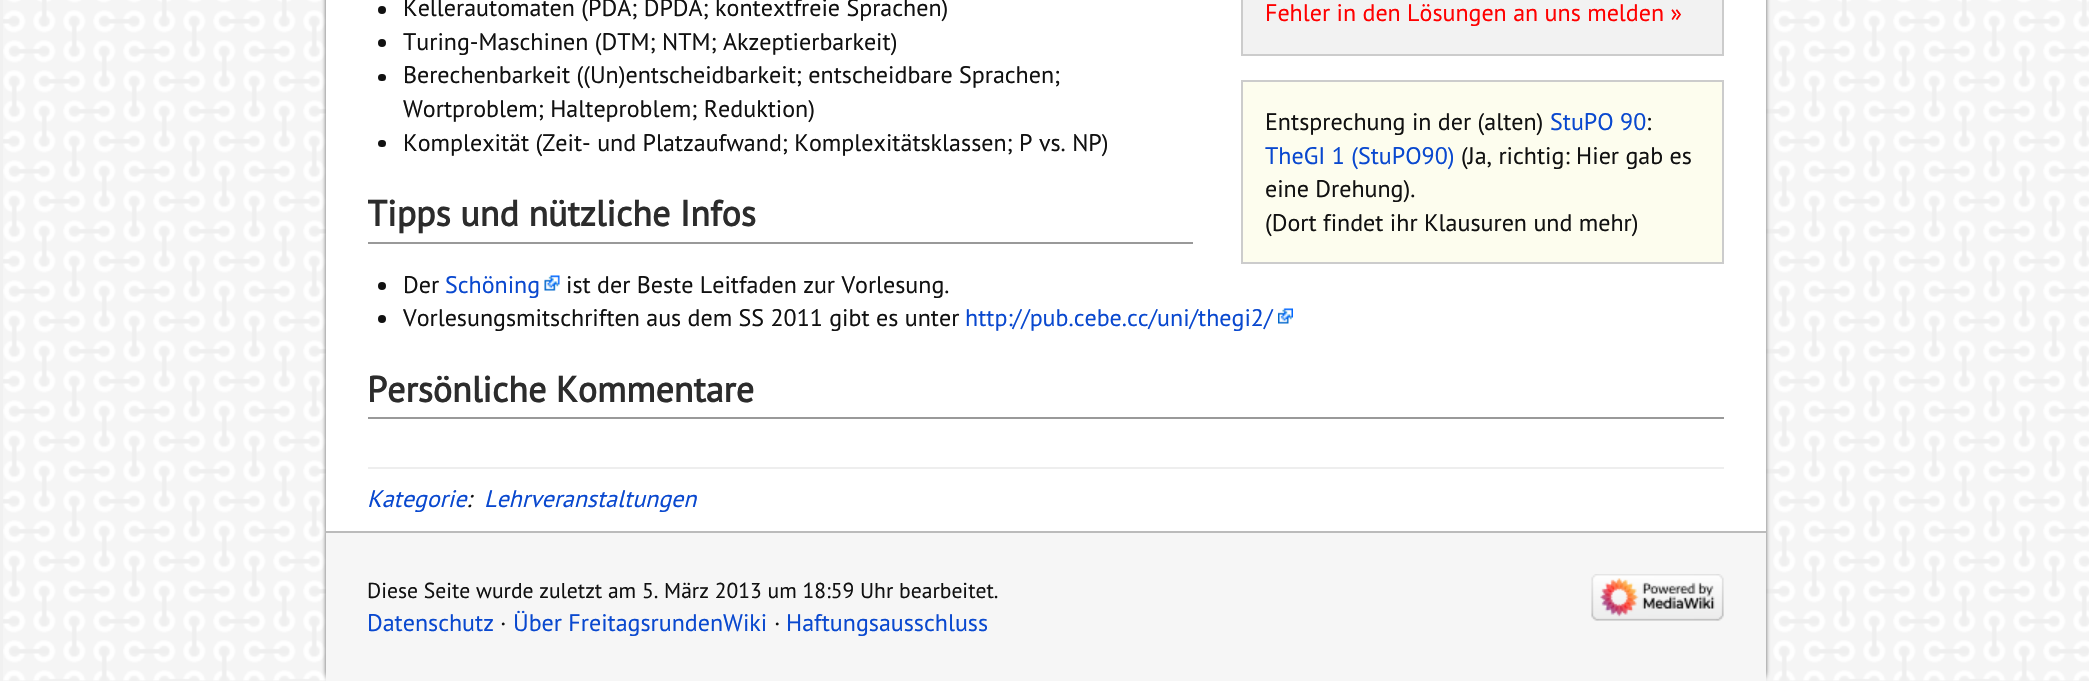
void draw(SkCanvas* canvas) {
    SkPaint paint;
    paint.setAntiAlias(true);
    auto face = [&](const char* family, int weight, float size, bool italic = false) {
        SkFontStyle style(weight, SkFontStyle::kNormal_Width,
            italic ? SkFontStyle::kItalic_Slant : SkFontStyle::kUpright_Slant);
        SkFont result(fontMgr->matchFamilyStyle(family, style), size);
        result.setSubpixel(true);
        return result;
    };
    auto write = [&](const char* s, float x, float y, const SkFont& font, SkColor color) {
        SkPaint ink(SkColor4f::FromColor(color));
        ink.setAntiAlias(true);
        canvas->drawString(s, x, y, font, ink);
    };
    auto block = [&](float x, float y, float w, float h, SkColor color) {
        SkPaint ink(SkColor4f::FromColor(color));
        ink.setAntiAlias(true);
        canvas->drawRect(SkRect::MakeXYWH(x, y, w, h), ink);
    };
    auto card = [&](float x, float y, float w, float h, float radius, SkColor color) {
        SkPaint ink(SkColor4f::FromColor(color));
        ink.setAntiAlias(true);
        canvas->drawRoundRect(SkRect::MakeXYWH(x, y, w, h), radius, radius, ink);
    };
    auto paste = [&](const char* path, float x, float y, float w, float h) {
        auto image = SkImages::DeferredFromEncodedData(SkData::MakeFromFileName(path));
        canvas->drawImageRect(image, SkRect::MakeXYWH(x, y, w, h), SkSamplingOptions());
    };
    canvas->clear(SkColorSetRGB(241, 241, 241));
    paste("pic1.png", 3, 0, 2086, 681);
    paint.setColor(SkColorSetARGB(153, 0, 0, 0));
    paint.setMaskFilter(SkMaskFilter::MakeBlur(kNormal_SkBlurStyle, 2));
    canvas->drawRoundRect(SkRect::MakeXYWH(326, -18, 1440, 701), 12, 12, paint);
    paint.setMaskFilter(nullptr);
    block(326, 0, 1440, 531, SK_ColorWHITE);
    paint.setColor(SkColorSetRGB(17, 17, 17));
    canvas->drawCircle(382, 10, 4, paint);
    auto kFont1 = face("PT Sans", 400, 24);
    write("Kellerautomaten (PDA; DPDA; kontextfreie Sprachen)", 403, 16, kFont1, SkColorSetRGB(17, 17, 17));
    canvas->drawCircle(382, 43, 4, paint);
    write("Turing-Maschinen (DTM; NTM; Akzeptierbarkeit)", 403, 50, kFont1, SkColorSetRGB(17, 17, 17));
    card(378, 74, 8, 7, 3.5f, SkColorSetRGB(17, 17, 17));
    write("Berechenbarkeit ((Un)entscheidbarkeit; entscheidbare Sprachen;", 403, 83, kFont1, SkColorSetRGB(17, 17, 17));
    write("Wortproblem; Halteproblem; Reduktion)", 403, 117, kFont1, SkColorSetRGB(17, 17, 17));
    card(378, 140, 8, 7, 3.5f, SkColorSetRGB(17, 17, 17));
    write("Komplexität (Zeit- und Platzaufwand; Komplexitätsklassen; P vs. NP)", 403, 151, kFont1, SkColorSetRGB(17, 17, 17));
    paint.setColor(SkColorSetRGB(242, 242, 242));
    canvas->drawRect(SkRect::MakeXYWH(1242, -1, 481, 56), paint);
    paint.setStyle(SkPaint::kStroke_Style);
    paint.setStrokeWidth(2);
    paint.setColor(SkColorSetRGB(204, 204, 204));
    canvas->drawRect(SkRect::MakeXYWH(1242, -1, 481, 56), paint);
    write("Fehler in den Lösungen an uns melden »", 1265, 21, kFont1, SkColorSetRGB(255, 0, 0));
    block(368, 242, 825, 2, SkColorSetRGB(153, 153, 153));
    canvas->save();
    canvas->clipRect(SkRect::MakeXYWH(368, 195, 825, 47));
    auto kFont2 = face("PT Sans", 700, 36);
    write("Tipps und nützliche Infos", 367, 226, kFont2, SkColorSetRGB(44, 44, 44));
    canvas->restore();
    paint.setStyle(SkPaint::kFill_Style);
    paint.setColor(SkColorSetRGB(253, 253, 238));
    canvas->drawRect(SkRect::MakeXYWH(1242, 81, 481, 182), paint);
    paint.setStyle(SkPaint::kStroke_Style);
    paint.setColor(SkColorSetRGB(204, 204, 204));
    canvas->drawRect(SkRect::MakeXYWH(1242, 81, 481, 182), paint);
    write("Entsprechung in der (alten)", 1265, 130, kFont1, SkColorSetRGB(17, 17, 17));
    write("StuPO 90", 1550, 130, kFont1, SkColorSetRGB(9, 72, 207));
    write(":", 1646, 130, kFont1, SkColorSetRGB(17, 17, 17));
    write("TheGI 1 (StuPO90)", 1265, 164, kFont1, SkColorSetRGB(9, 72, 207));
    write("(Ja, richtig: Hier gab es", 1461, 164, kFont1, SkColorSetRGB(17, 17, 17));
    write("eine Drehung).", 1265, 197, kFont1, SkColorSetRGB(17, 17, 17));
    write("(Dort findet ihr Klausuren und mehr)", 1265, 231, kFont1, SkColorSetRGB(17, 17, 17));
    paint.setStyle(SkPaint::kFill_Style);
    paint.setColor(SkColorSetRGB(17, 17, 17));
    canvas->drawCircle(382, 286, 4, paint);
    write("Der", 403, 293, kFont1, SkColorSetRGB(17, 17, 17));
    write("Schöning", 445, 293, kFont1, SkColorSetRGB(9, 72, 207));
    paste("pic2.png", 544, 275, 16, 16);
    write("ist der Beste Leitfaden zur Vorlesung.", 566, 293, kFont1, SkColorSetRGB(17, 17, 17));
    canvas->drawCircle(382, 319, 4, paint);
    write("Vorlesungsmitschriften aus dem SS 2011 gibt es unter", 403, 326, kFont1, SkColorSetRGB(17, 17, 17));
    write("http://pub.cebe.cc/uni/thegi2/", 965, 326, kFont1, SkColorSetRGB(9, 72, 207));
    paste("pic3.png", 1278, 308, 15, 16);
    block(368, 417, 1356, 2, SkColorSetRGB(153, 153, 153));
    write("Persönliche Kommentare", 367, 402, kFont2, SkColorSetRGB(44, 44, 44));
    block(368, 467, 1356, 2, SkColorSetRGB(238, 238, 238));
    auto kFont3 = face("PT Sans", 400, 24, true);
    write("Kategorie", 367, 507, kFont3, SkColorSetRGB(9, 72, 207));
    write(":", 466, 507, kFont3, SkColorSetRGB(17, 17, 17));
    write("Lehrveranstaltungen", 484, 507, kFont3, SkColorSetRGB(9, 72, 207));
    block(326, 533, 1440, 148, SkColorSetRGB(246, 246, 246));
    block(326, 531, 1440, 2, SkColorSetRGB(187, 187, 187));
    auto kFont4 = face("PT Sans", 400, 21.6f);
    write("Diese Seite wurde zuletzt am 5. März 2013 um 18:59 Uhr bearbeitet.", 367, 598, kFont4, SkColorSetRGB(17, 17, 17));
    paste("pic4.png", 1591, 574, 133, 47);
    write("Datenschutz", 367, 631, kFont1, SkColorSetRGB(9, 72, 207));
    write("·", 500, 631, kFont1, SkColorSetRGB(17, 17, 17));
    write("Über FreitagsrundenWiki", 513, 631, kFont1, SkColorSetRGB(9, 72, 207));
    write("·", 774, 631, kFont1, SkColorSetRGB(17, 17, 17));
    write("Haftungsausschluss", 786, 631, kFont1, SkColorSetRGB(9, 72, 207));
}
